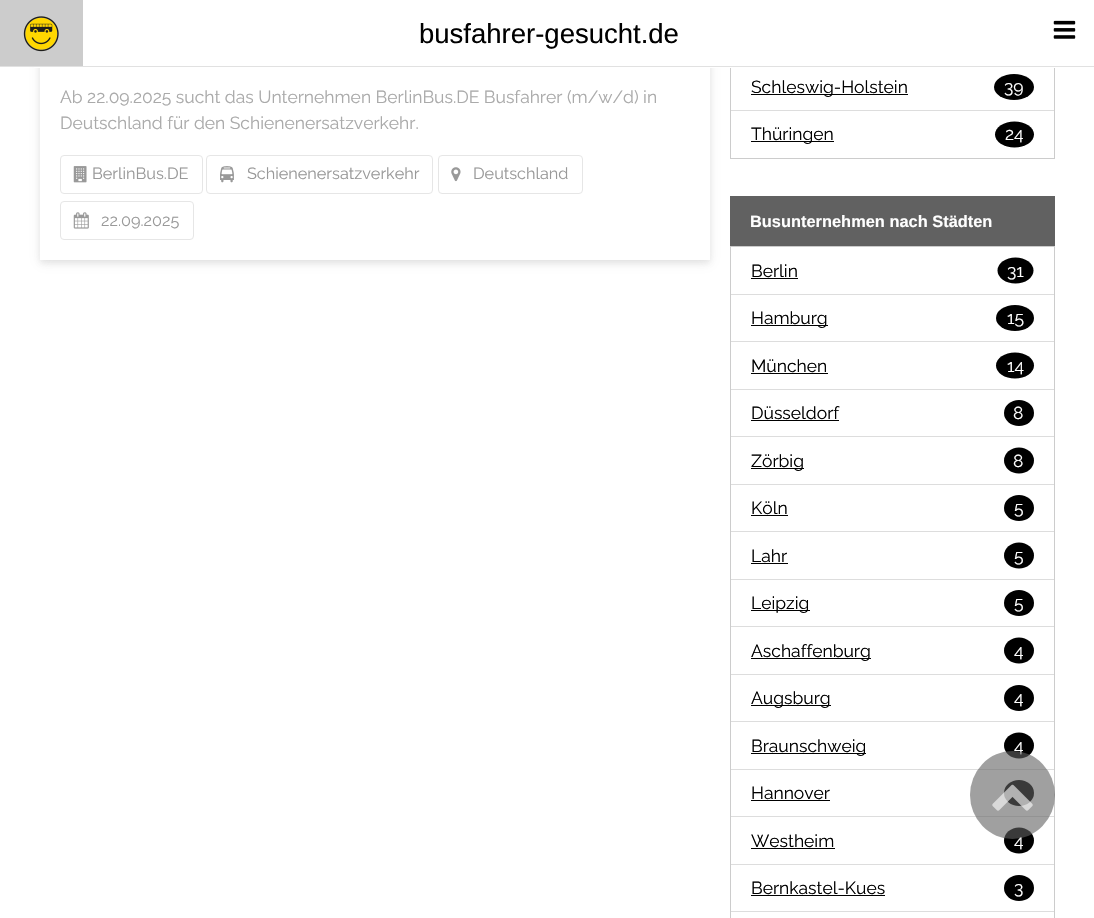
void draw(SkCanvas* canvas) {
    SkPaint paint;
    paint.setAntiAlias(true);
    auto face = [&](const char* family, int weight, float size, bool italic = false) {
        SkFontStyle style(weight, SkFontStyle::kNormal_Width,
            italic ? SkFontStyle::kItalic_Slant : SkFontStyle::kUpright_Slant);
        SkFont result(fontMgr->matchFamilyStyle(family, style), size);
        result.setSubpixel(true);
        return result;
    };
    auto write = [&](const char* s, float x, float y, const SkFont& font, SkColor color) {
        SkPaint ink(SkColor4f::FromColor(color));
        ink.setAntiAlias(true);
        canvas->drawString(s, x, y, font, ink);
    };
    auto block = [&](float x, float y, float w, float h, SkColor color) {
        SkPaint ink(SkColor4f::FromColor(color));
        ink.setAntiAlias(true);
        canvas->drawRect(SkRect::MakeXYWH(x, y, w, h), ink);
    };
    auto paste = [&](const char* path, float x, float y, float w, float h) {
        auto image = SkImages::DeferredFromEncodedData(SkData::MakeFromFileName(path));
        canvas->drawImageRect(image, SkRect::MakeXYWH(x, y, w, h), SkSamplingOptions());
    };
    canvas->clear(SK_ColorWHITE);
    canvas->save();
    canvas->clipPath(SkPathBuilder(SkPathFillType::kEvenOdd).moveTo(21, 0).lineTo(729, 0).lineTo(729, 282).lineTo(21, 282).close().moveTo(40, -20).lineTo(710, -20).lineTo(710, 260).lineTo(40, 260).close().detach(), true);
    paint.setColor(SkColorSetARGB(31, 128, 128, 128));
    paint.setMaskFilter(SkMaskFilter::MakeBlur(kNormal_SkBlurStyle, 6));
    canvas->drawRect(SkRect::MakeXYWH(40, -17, 670, 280), paint);
    paint.setMaskFilter(nullptr);
    canvas->restore();
    canvas->save();
    canvas->clipPath(SkPathBuilder(SkPathFillType::kEvenOdd).moveTo(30, 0).lineTo(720, 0).lineTo(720, 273).lineTo(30, 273).close().moveTo(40, -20).lineTo(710, -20).lineTo(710, 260).lineTo(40, 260).close().detach(), true);
    paint.setColor(SkColorSetARGB(41, 128, 128, 128));
    paint.setMaskFilter(SkMaskFilter::MakeBlur(kNormal_SkBlurStyle, 3));
    canvas->drawRect(SkRect::MakeXYWH(40, -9, 670, 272), paint);
    paint.setMaskFilter(nullptr);
    canvas->restore();
    paint.setStyle(SkPaint::kStroke_Style);
    paint.setStrokeWidth(1);
    paint.setColor(SkColorSetRGB(204, 204, 204));
    canvas->drawRect(SkRect::MakeXYWH(730.5f, -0.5f, 324, 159), paint);
    block(34, 0, 1021, 68, SK_ColorWHITE);
    block(0, 66, 1094, 1, SkColorSetRGB(225, 225, 225));
    block(0, 0, 83, 66, SkColorSetRGB(204, 204, 204));
    paste("pic1.png", 23, 16, 36, 36);
    auto kFont1 = face("Liberation Sans", 400, 27.5f);
    write("busfahrer-gesucht.de", 419, 43, kFont1, SK_ColorBLACK);
    paste("pic2.png", 1053, 20, 23, 19);
    auto kFont2 = face("Raleway", 400, 17.5f);
    write("Ab 22.09.2025 sucht das Unternehmen BerlinBus.DE Busfahrer (m/w/d) in", 60, 103, kFont2, SkColorSetRGB(170, 170, 170));
    write("Deutschland für den Schienenersatzverkehr.", 60, 129, kFont2, SkColorSetRGB(170, 170, 170));
    paint.setColor(SkColorSetRGB(230, 230, 230));
    canvas->drawRoundRect(SkRect::MakeXYWH(60.5f, 155.5f, 142, 38), 3.5f, 3.5f, paint);
    paste("pic3.png", 73, 166, 14, 17);
    auto kFont3 = face("Raleway", 400, 16.25f);
    write("BerlinBus.DE", 92, 179, kFont3, SkColorSetRGB(153, 153, 153));
    canvas->drawRoundRect(SkRect::MakeXYWH(206.5f, 155.5f, 226, 38), 3.5f, 3.5f, paint);
    paste("pic4.png", 220, 166, 14, 17);
    write("Schienenersatzverkehr", 247, 179, kFont3, SkColorSetRGB(153, 153, 153));
    canvas->drawRoundRect(SkRect::MakeXYWH(438.5f, 155.5f, 144, 38), 3.5f, 3.5f, paint);
    paste("pic5.png", 451, 167, 10, 15);
    write("Deutschland", 473, 179, kFont3, SkColorSetRGB(153, 153, 153));
    canvas->drawRoundRect(SkRect::MakeXYWH(60.5f, 201.5f, 133, 38), 3.5f, 3.5f, paint);
    paste("pic6.png", 73, 212, 16, 17);
    write("22.09.2025", 101, 226, kFont3, SkColorSetRGB(153, 153, 153));
    block(731, 110, 323, 1, SkColorSetRGB(221, 221, 221));
    block(751, 94, 157, 1, SK_ColorBLACK);
    write("Schleswig-Holstein", 751, 93, kFont2, SK_ColorBLACK);
    paint.setStyle(SkPaint::kFill_Style);
    paint.setColor(SK_ColorBLACK);
    canvas->drawOval(SkRect::MakeXYWH(994, 74, 40, 26), paint);
    write("39", 1004, 93, kFont2, SK_ColorWHITE);
    block(751, 141, 83, 1, SK_ColorBLACK);
    write("Thüringen", 751, 140, kFont2, SK_ColorBLACK);
    canvas->drawOval(SkRect::MakeXYWH(995, 121.5f, 39, 26), paint);
    write("24", 1005, 140, kFont2, SK_ColorWHITE);
    block(730, 196, 325, 50, SkColorSetRGB(97, 97, 97));
    auto kFont4 = face("Liberation Sans", 700, 16.4f);
    write("Busunternehmen nach Städten", 750, 227, kFont4, SK_ColorWHITE);
    paint.setStyle(SkPaint::kStroke_Style);
    paint.setColor(SkColorSetRGB(204, 204, 204));
    canvas->drawRect(SkRect::MakeXYWH(730.5f, 246.5f, 324, 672), paint);
    block(731, 294, 323, 1, SkColorSetRGB(221, 221, 221));
    write("Berlin", 751, 277, kFont2, SK_ColorBLACK);
    block(751, 278, 47, 1, SK_ColorBLACK);
    paint.setStyle(SkPaint::kFill_Style);
    paint.setColor(SK_ColorBLACK);
    canvas->drawOval(SkRect::MakeXYWH(997.5f, 257.5f, 36, 26), paint);
    write("31", 1007, 277, kFont2, SK_ColorWHITE);
    block(731, 341, 323, 1, SkColorSetRGB(221, 221, 221));
    block(751, 325, 77, 1, SK_ColorBLACK);
    write("Hamburg", 751, 324, kFont2, SK_ColorBLACK);
    canvas->drawOval(SkRect::MakeXYWH(996, 305, 38, 26), paint);
    write("15", 1007, 324, kFont2, SK_ColorWHITE);
    block(731, 389, 323, 1, SkColorSetRGB(221, 221, 221));
    write("München", 751, 372, kFont2, SK_ColorBLACK);
    block(751, 373, 77, 1, SK_ColorBLACK);
    canvas->drawOval(SkRect::MakeXYWH(996, 352.5f, 38, 26), paint);
    write("14", 1007, 372, kFont2, SK_ColorWHITE);
    block(731, 436, 323, 1, SkColorSetRGB(221, 221, 221));
    write("Düsseldorf", 751, 419, kFont2, SK_ColorBLACK);
    block(751, 420, 88, 1, SK_ColorBLACK);
    canvas->drawOval(SkRect::MakeXYWH(1004, 400, 30, 26), paint);
    write("8", 1013, 419, kFont2, SK_ColorWHITE);
    block(731, 484, 323, 1, SkColorSetRGB(221, 221, 221));
    block(751, 468, 53, 1, SK_ColorBLACK);
    write("Zörbig", 751, 467, kFont2, SK_ColorBLACK);
    canvas->drawOval(SkRect::MakeXYWH(1004, 447.5f, 30, 26), paint);
    write("8", 1013, 467, kFont2, SK_ColorWHITE);
    block(731, 531, 323, 1, SkColorSetRGB(221, 221, 221));
    write("Köln", 751, 514, kFont2, SK_ColorBLACK);
    block(751, 515, 37, 1, SK_ColorBLACK);
    canvas->drawOval(SkRect::MakeXYWH(1004, 495, 30, 26), paint);
    write("5", 1014, 514, kFont2, SK_ColorWHITE);
    block(731, 579, 323, 1, SkColorSetRGB(221, 221, 221));
    write("Lahr", 751, 562, kFont2, SK_ColorBLACK);
    block(751, 563, 37, 1, SK_ColorBLACK);
    canvas->drawOval(SkRect::MakeXYWH(1004, 542.5f, 30, 26), paint);
    write("5", 1014, 562, kFont2, SK_ColorWHITE);
    block(731, 626, 323, 1, SkColorSetRGB(221, 221, 221));
    block(751, 610, 59, 1, SK_ColorBLACK);
    write("Leipzig", 751, 609, kFont2, SK_ColorBLACK);
    canvas->drawOval(SkRect::MakeXYWH(1004, 590, 30, 26), paint);
    write("5", 1014, 609, kFont2, SK_ColorWHITE);
    block(731, 674, 323, 1, SkColorSetRGB(221, 221, 221));
    block(751, 658, 120, 1, SK_ColorBLACK);
    write("Aschaffenburg", 751, 657, kFont2, SK_ColorBLACK);
    canvas->drawOval(SkRect::MakeXYWH(1004, 637.5f, 30, 26), paint);
    write("4", 1014, 657, kFont2, SK_ColorWHITE);
    block(731, 721, 323, 1, SkColorSetRGB(221, 221, 221));
    block(751, 705, 80, 1, SK_ColorBLACK);
    write("Augsburg", 751, 704, kFont2, SK_ColorBLACK);
    canvas->drawOval(SkRect::MakeXYWH(1004, 685, 30, 26), paint);
    write("4", 1014, 704, kFont2, SK_ColorWHITE);
    block(731, 769, 323, 1, SkColorSetRGB(221, 221, 221));
    block(751, 753, 115, 1, SK_ColorBLACK);
    write("Braunschweig", 751, 752, kFont2, SK_ColorBLACK);
    canvas->drawOval(SkRect::MakeXYWH(1004, 732.5f, 30, 26), paint);
    write("4", 1014, 752, kFont2, SK_ColorWHITE);
    block(731, 816, 323, 1, SkColorSetRGB(221, 221, 221));
    write("Hannover", 751, 799, kFont2, SK_ColorBLACK);
    block(751, 800, 79, 1, SK_ColorBLACK);
    canvas->drawOval(SkRect::MakeXYWH(1004, 780, 30, 26), paint);
    block(731, 864, 323, 1, SkColorSetRGB(221, 221, 221));
    write("Westheim", 751, 847, kFont2, SK_ColorBLACK);
    block(751, 848, 84, 1, SK_ColorBLACK);
    canvas->drawOval(SkRect::MakeXYWH(1004, 827.5f, 30, 26), paint);
    write("4", 1014, 847, kFont2, SK_ColorWHITE);
    block(731, 911, 323, 1, SkColorSetRGB(221, 221, 221));
    write("Bernkastel-Kues", 751, 894, kFont2, SK_ColorBLACK);
    block(751, 895, 134, 1, SK_ColorBLACK);
    canvas->drawOval(SkRect::MakeXYWH(1004, 875, 30, 26), paint);
    write("3", 1014, 894, kFont2, SK_ColorWHITE);
    paint.setColor(SkColorSetARGB(153, 97, 97, 97));
    canvas->drawOval(SkRect::MakeXYWH(970, 751, 85, 88), paint);
    paste("pic7.png", 992, 784, 41, 27);
}
